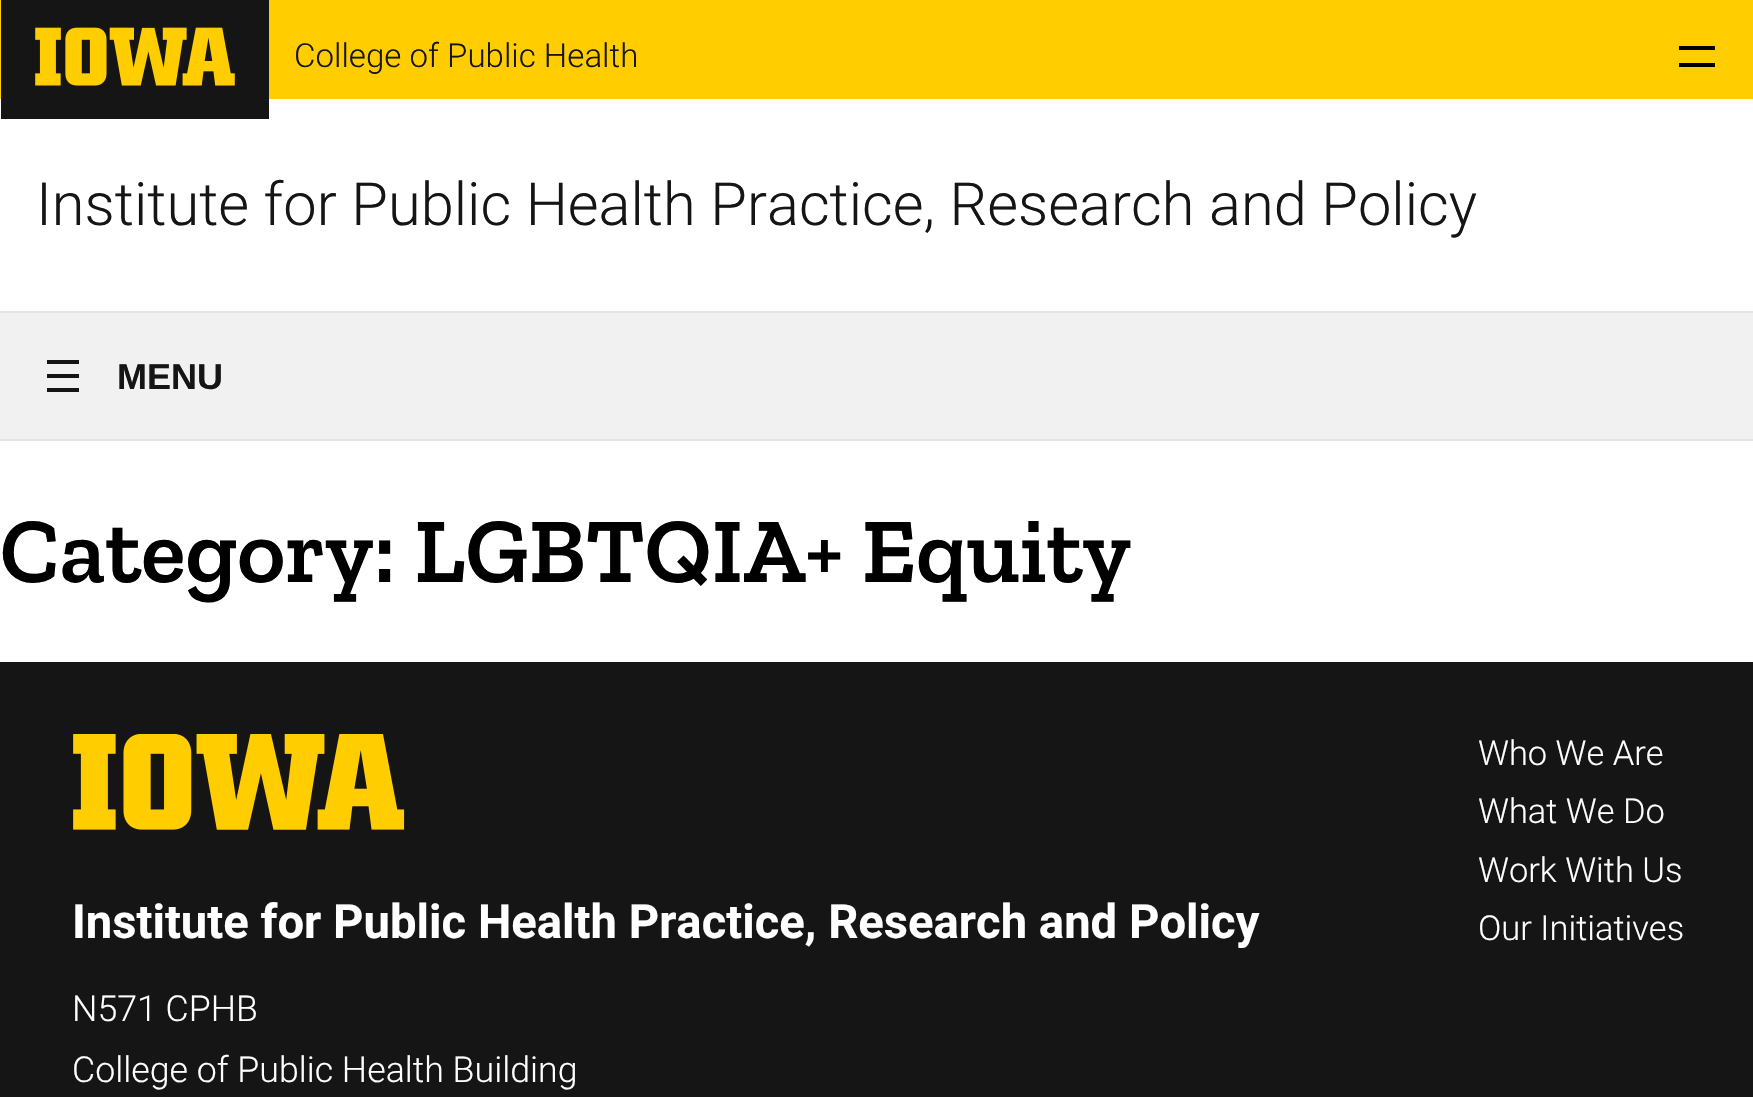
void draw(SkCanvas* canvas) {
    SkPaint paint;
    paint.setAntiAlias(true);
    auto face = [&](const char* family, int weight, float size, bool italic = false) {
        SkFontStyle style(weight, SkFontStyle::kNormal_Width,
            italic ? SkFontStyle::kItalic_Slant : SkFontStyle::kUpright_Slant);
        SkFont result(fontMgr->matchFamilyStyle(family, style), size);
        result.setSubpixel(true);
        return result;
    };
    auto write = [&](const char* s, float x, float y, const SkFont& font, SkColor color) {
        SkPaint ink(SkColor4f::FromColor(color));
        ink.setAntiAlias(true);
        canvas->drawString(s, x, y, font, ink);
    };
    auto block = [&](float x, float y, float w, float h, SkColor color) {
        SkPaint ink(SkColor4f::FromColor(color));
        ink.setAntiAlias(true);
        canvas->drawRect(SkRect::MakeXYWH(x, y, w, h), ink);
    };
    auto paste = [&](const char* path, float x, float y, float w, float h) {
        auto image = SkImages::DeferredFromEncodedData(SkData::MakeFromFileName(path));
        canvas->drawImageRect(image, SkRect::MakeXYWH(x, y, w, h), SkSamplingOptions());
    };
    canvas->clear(SK_ColorWHITE);
    block(0, 0, 1753, 99, SkColorSetRGB(255, 205, 0));
    paste("pic1.png", 1, 0, 268, 119);
    auto kFont1 = face("Roboto", 300, 33.1f);
    write("College of Public Health", 294, 67, kFont1, SkColorSetRGB(21, 21, 21));
    block(1679, 46, 36, 4, SK_ColorBLACK);
    block(1679, 63, 36, 4, SK_ColorBLACK);
    auto kFont2 = face("Roboto", 300, 59.6f);
    write("Institute for Public Health Practice, Research and Policy", 36, 225, kFont2, SkColorSetRGB(21, 21, 21));
    block(0, 311, 1753, 2, SkColorSetRGB(229, 229, 229));
    block(0, 439, 1753, 2, SkColorSetRGB(229, 229, 229));
    block(0, 313, 1753, 126, SkColorSetRGB(241, 241, 241));
    block(47, 360, 32, 4, SkColorSetRGB(21, 21, 21));
    block(47, 374, 32, 4, SkColorSetRGB(21, 21, 21));
    block(47, 388, 32, 4, SkColorSetRGB(21, 21, 21));
    auto kFont3 = face("Liberation Sans", 700, 36);
    write("MENU", 117, 389, kFont3, SkColorSetRGB(21, 21, 21));
    auto kFont4 = face("Zilla Slab", 600, 92.4f);
    write("Category: LGBTQIA+ Equity", 0, 582, kFont4, SK_ColorBLACK);
    block(0, 662, 1753, 435, SkColorSetRGB(21, 21, 21));
    auto kFont5 = face("Roboto", 300, 34.5f);
    write("Who We Are", 1478, 765, kFont5, SK_ColorWHITE);
    write("What We Do", 1478, 823, kFont5, SK_ColorWHITE);
    write("Work With Us", 1478, 882, kFont5, SK_ColorWHITE);
    write("Our Initiatives", 1478, 940, kFont5, SK_ColorWHITE);
    paste("pic2.png", 73, 734, 332, 96);
    auto kFont6 = face("Roboto", 700, 47.2f);
    write("Institute for Public Health Practice, Research and Policy", 72, 938, kFont6, SK_ColorWHITE);
    auto kFont7 = face("Roboto", 300, 35.75f);
    write("N571 CPHB", 72, 1021, kFont7, SK_ColorWHITE);
    write("College of Public Health Building", 72, 1082, kFont7, SK_ColorWHITE);
}
